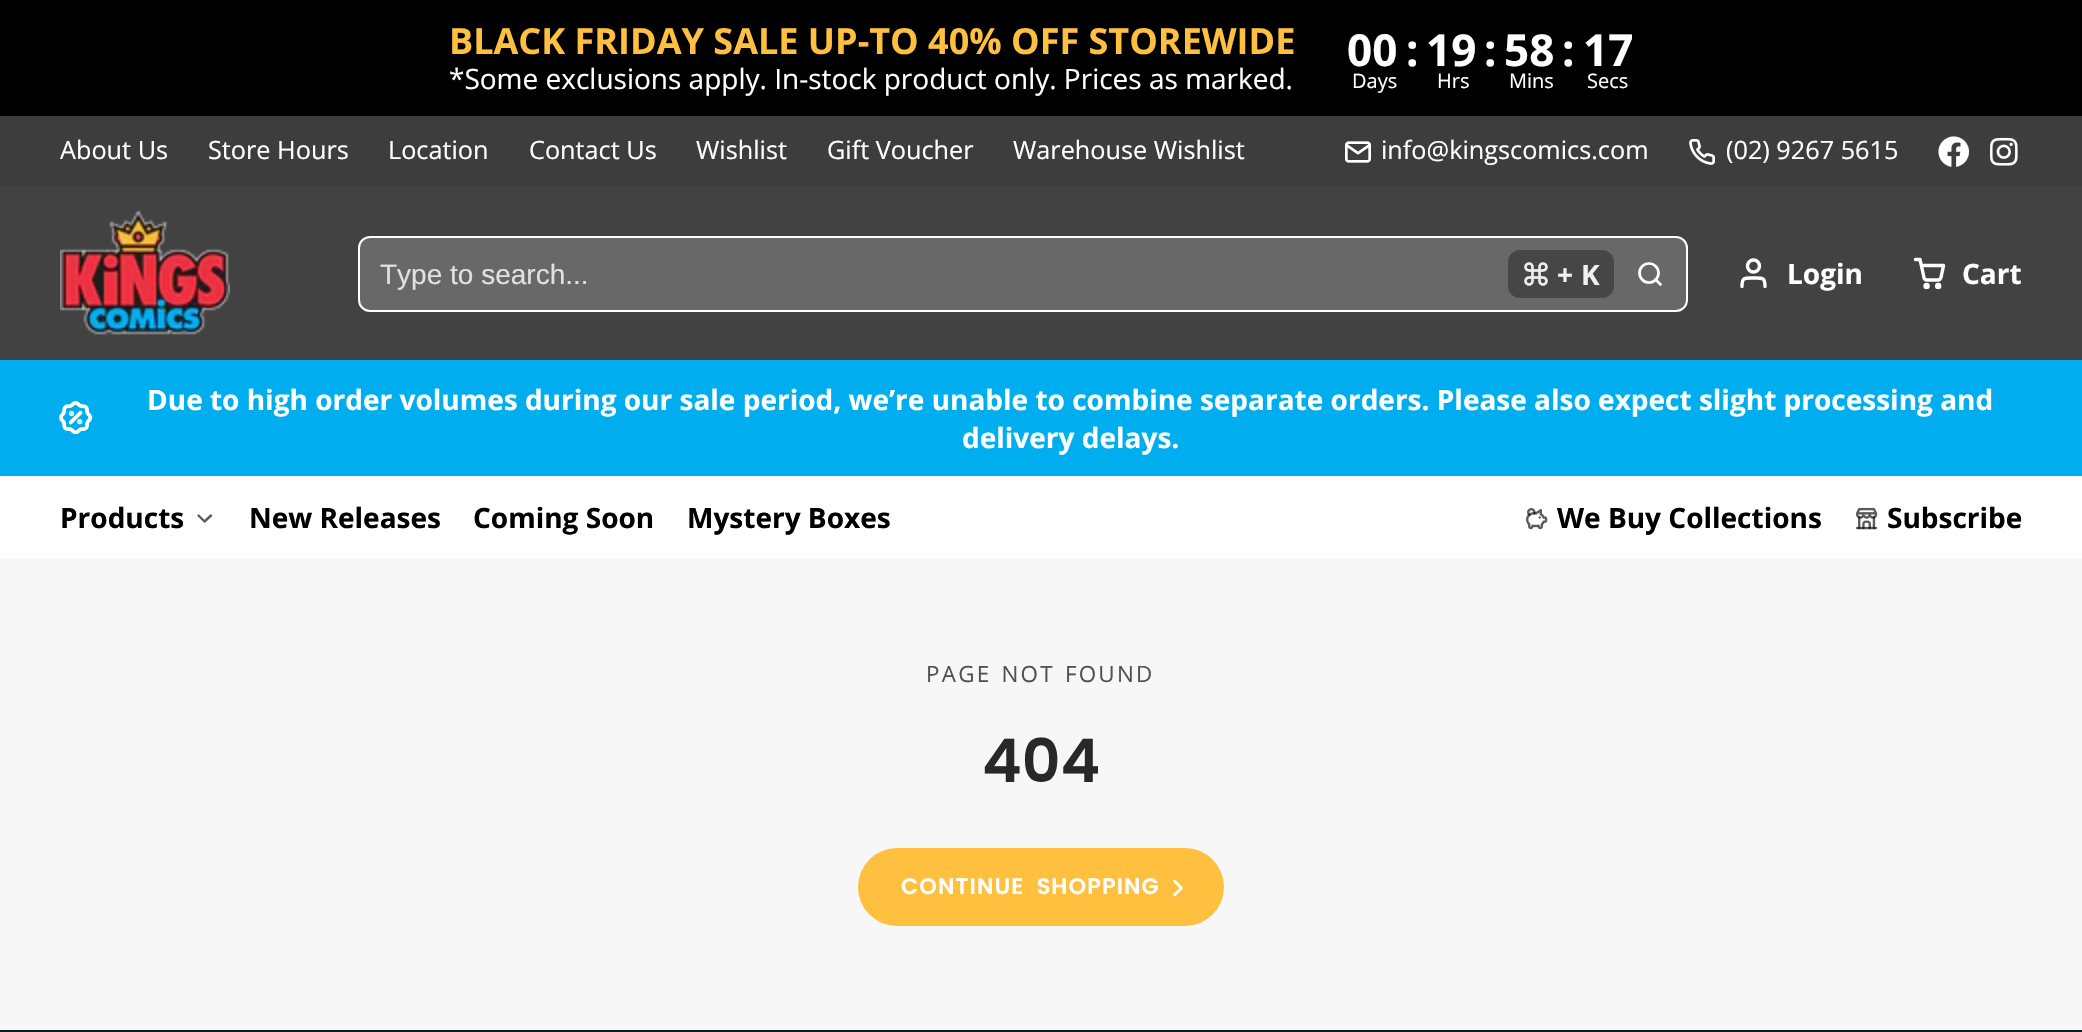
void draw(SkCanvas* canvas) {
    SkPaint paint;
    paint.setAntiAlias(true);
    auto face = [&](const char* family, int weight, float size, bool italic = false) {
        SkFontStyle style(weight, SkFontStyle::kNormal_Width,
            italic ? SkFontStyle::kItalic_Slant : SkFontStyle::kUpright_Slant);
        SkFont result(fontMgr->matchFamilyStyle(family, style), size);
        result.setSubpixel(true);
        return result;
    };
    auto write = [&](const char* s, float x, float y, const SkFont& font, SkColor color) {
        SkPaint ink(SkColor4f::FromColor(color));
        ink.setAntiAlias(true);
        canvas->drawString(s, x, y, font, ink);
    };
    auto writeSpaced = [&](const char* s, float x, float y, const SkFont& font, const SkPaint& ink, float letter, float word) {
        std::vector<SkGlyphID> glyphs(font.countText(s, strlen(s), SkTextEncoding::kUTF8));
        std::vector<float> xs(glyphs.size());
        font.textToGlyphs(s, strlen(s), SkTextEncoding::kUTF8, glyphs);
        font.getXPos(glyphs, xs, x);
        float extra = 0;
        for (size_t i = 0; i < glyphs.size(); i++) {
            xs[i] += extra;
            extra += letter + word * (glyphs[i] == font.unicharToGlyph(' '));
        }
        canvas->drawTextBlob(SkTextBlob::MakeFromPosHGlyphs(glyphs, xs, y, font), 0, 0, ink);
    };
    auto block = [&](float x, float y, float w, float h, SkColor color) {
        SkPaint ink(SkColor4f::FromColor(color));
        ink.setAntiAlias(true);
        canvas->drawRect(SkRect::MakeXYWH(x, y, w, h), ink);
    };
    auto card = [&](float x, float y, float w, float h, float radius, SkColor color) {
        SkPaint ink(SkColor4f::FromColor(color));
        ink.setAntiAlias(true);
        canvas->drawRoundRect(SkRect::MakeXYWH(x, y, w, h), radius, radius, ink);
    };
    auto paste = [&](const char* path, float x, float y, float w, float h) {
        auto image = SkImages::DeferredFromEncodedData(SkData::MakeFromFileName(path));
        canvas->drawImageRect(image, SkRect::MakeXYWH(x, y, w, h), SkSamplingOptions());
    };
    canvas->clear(SkColorSetRGB(247, 247, 247));
    block(0, 0, 2082, 116, SK_ColorBLACK);
    auto kFont1 = face("Open Sans", 700, 36);
    write("BLACK FRIDAY SALE UP-TO 40% OFF STOREWIDE", 449, 54, kFont1, SkColorSetRGB(255, 191, 63));
    auto kFont2 = face("Open Sans", 400, 28);
    write("*Some exclusions apply. In-stock product only. Prices as marked.", 449, 89, kFont2, SK_ColorWHITE);
    auto kFont3 = face("Open Sans", 700, 44);
    write("00", 1347, 66, kFont3, SK_ColorWHITE);
    write(":", 1406, 66, kFont3, SK_ColorWHITE);
    write("19", 1426, 66, kFont3, SK_ColorWHITE);
    write(":", 1484, 66, kFont3, SK_ColorWHITE);
    write("58", 1504, 66, kFont3, SK_ColorWHITE);
    write(":", 1562, 66, kFont3, SK_ColorWHITE);
    write("17", 1583, 66, kFont3, SK_ColorWHITE);
    auto kFont4 = face("Open Sans", 400, 20);
    write("Days", 1352, 88, kFont4, SK_ColorWHITE);
    write("Hrs", 1437, 88, kFont4, SK_ColorWHITE);
    write("Mins", 1509, 88, kFont4, SK_ColorWHITE);
    write("Secs", 1587, 88, kFont4, SK_ColorWHITE);
    block(0, 116, 2082, 70, SkColorSetRGB(61, 61, 61));
    auto kFont5 = face("Open Sans", 400, 25.25f);
    write("About Us", 60, 159, kFont5, SK_ColorWHITE);
    write("Store Hours", 208, 159, kFont5, SK_ColorWHITE);
    write("Location", 388, 159, kFont5, SK_ColorWHITE);
    write("Contact Us", 529, 159, kFont5, SK_ColorWHITE);
    write("Wishlist", 696, 159, kFont5, SK_ColorWHITE);
    write("Gift Voucher", 827, 159, kFont5, SK_ColorWHITE);
    write("Warehouse Wishlist", 1013, 159, kFont5, SK_ColorWHITE);
    paste("pic1.png", 1345, 141, 26, 22);
    write("info@kingscomics.com", 1381, 159, kFont5, SK_ColorWHITE);
    paste("pic2.png", 1689, 139, 26, 26);
    write("(02) 9267 5615", 1726, 159, kFont5, SK_ColorWHITE);
    paste("pic3.png", 1938, 136, 32, 31);
    paste("pic4.png", 1990, 137, 28, 29);
    block(0, 186, 2082, 174, SkColorSetRGB(66, 66, 66));
    paste("pic5.png", 60, 210, 170, 125);
    paint.setColor(SkColorSetRGB(104, 104, 104));
    canvas->drawRoundRect(SkRect::MakeXYWH(359, 237, 1328, 74), 11, 11, paint);
    paint.setStyle(SkPaint::kStroke_Style);
    paint.setStrokeWidth(2);
    paint.setColor(SK_ColorWHITE);
    canvas->drawRoundRect(SkRect::MakeXYWH(359, 237, 1328, 74), 11, 11, paint);
    auto kFont6 = face("Liberation Sans", 400, 28);
    write("Type to search...", 380, 284, kFont6, SkColorSetRGB(225, 225, 225));
    card(1508, 250, 106, 48, 12, SkColorSetRGB(70, 70, 70));
    paste("pic6.png", 1524, 262, 24, 24);
    auto kFont7 = face("Open Sans", 700, 28);
    write("+", 1557, 285, kFont7, SkColorSetRGB(240, 240, 240));
    write("K", 1581, 285, kFont7, SkColorSetRGB(240, 240, 240));
    paint.setStrokeWidth(2.7f);
    canvas->drawCircle(1649, 273, 9.5f, paint);
    paint.setStrokeCap(SkPaint::kRound_Cap);
    paint.setStrokeJoin(SkPaint::kRound_Join);
    canvas->drawPath(SkPathBuilder().moveTo(1660.5f, 284.5f).lineTo(1655.5f, 279.5f).detach(), paint);
    paint.setStrokeWidth(3.4f);
    canvas->drawPath(SkPathBuilder().moveTo(1765, 286.5f).cubicTo(1765, 277, 1762, 278, 1753.5f, 278).cubicTo(1745, 278, 1742, 277, 1742, 286.5f).detach(), paint);
    paint.setStrokeCap(SkPaint::kButt_Cap);
    paint.setStrokeJoin(SkPaint::kMiter_Join);
    canvas->drawCircle(1753.5f, 266, 6, paint);
    write("Login", 1787, 284, kFont7, SK_ColorWHITE);
    canvas->drawCircle(1926.6f, 285.9f, 1.5f, paint);
    canvas->drawCircle(1938.2f, 285.9f, 1.5f, paint);
    paint.setStrokeCap(SkPaint::kRound_Cap);
    paint.setStrokeJoin(SkPaint::kRound_Join);
    canvas->drawPath(SkPathBuilder().moveTo(1915.5f, 259.5f).lineTo(1920, 259.5f).lineTo(1924, 277.5f).cubicTo(1924, 279, 1925.5f, 280, 1927, 280).lineTo(1938, 280).cubicTo(1939.5f, 280, 1940.5f, 279, 1941, 277.5f).lineTo(1943.5f, 265.5f).lineTo(1922.5f, 265.5f).detach(), paint);
    write("Cart", 1962, 284, kFont7, SK_ColorWHITE);
    block(0, 360, 2082, 116, SkColorSetRGB(0, 174, 239));
    paste("pic7.png", 59, 401, 34, 34);
    write("Due to high order volumes during our sale period, we’re unable to combine separate orders. Please also expect slight processing and", 147, 410, kFont7, SK_ColorWHITE);
    write("delivery delays.", 962, 448, kFont7, SK_ColorWHITE);
    block(0, 476, 2082, 82, SK_ColorWHITE);
    write("Products", 60, 528, kFont7, SK_ColorBLACK);
    paint.setStrokeWidth(2.4f);
    paint.setColor(SkColorSetRGB(92, 92, 92));
    canvas->drawPath(SkPathBuilder().moveTo(198.5f, 515.5f).lineTo(204.5f, 521.5f).lineTo(211, 515.5f).detach(), paint);
    write("New Releases", 249, 528, kFont7, SK_ColorBLACK);
    write("Coming Soon", 473, 528, kFont7, SK_ColorBLACK);
    write("Mystery Boxes", 687, 528, kFont7, SK_ColorBLACK);
    paste("pic8.png", 1526, 508, 22, 22);
    write("We Buy Collections", 1557, 528, kFont7, SK_ColorBLACK);
    paste("pic9.png", 1855, 507, 23, 23);
    write("Subscribe", 1887, 528, kFont7, SK_ColorBLACK);
    auto kFont8 = face("Open Sans", 400, 22.4f);
    paint.setStyle(SkPaint::kFill_Style);
    paint.setColor(SkColorSetRGB(81, 81, 81));
    writeSpaced("PAGE NOT FOUND", 926, 682, kFont8, paint, 2.25f, 2);
    auto kFont9 = face("Poppins", 600, 60);
    write("404", 982, 782, kFont9, SkColorSetRGB(40, 40, 40));
    card(858, 848, 366, 78, 39, SkColorSetRGB(255, 191, 63));
    auto kFont10 = face("Poppins", 600, 22.4f);
    paint.setColor(SK_ColorWHITE);
    writeSpaced("CONTINUE SHOPPING", 901, 894, kFont10, paint, 1.1f, 6);
    paint.setStyle(SkPaint::kStroke_Style);
    paint.setStrokeWidth(2.7f);
    canvas->drawPath(SkPathBuilder().moveTo(1174.5f, 895).lineTo(1181.5f, 888).lineTo(1174.5f, 881).detach(), paint);
    block(0, 1030, 2082, 2, SkColorSetRGB(9, 28, 37));
}
